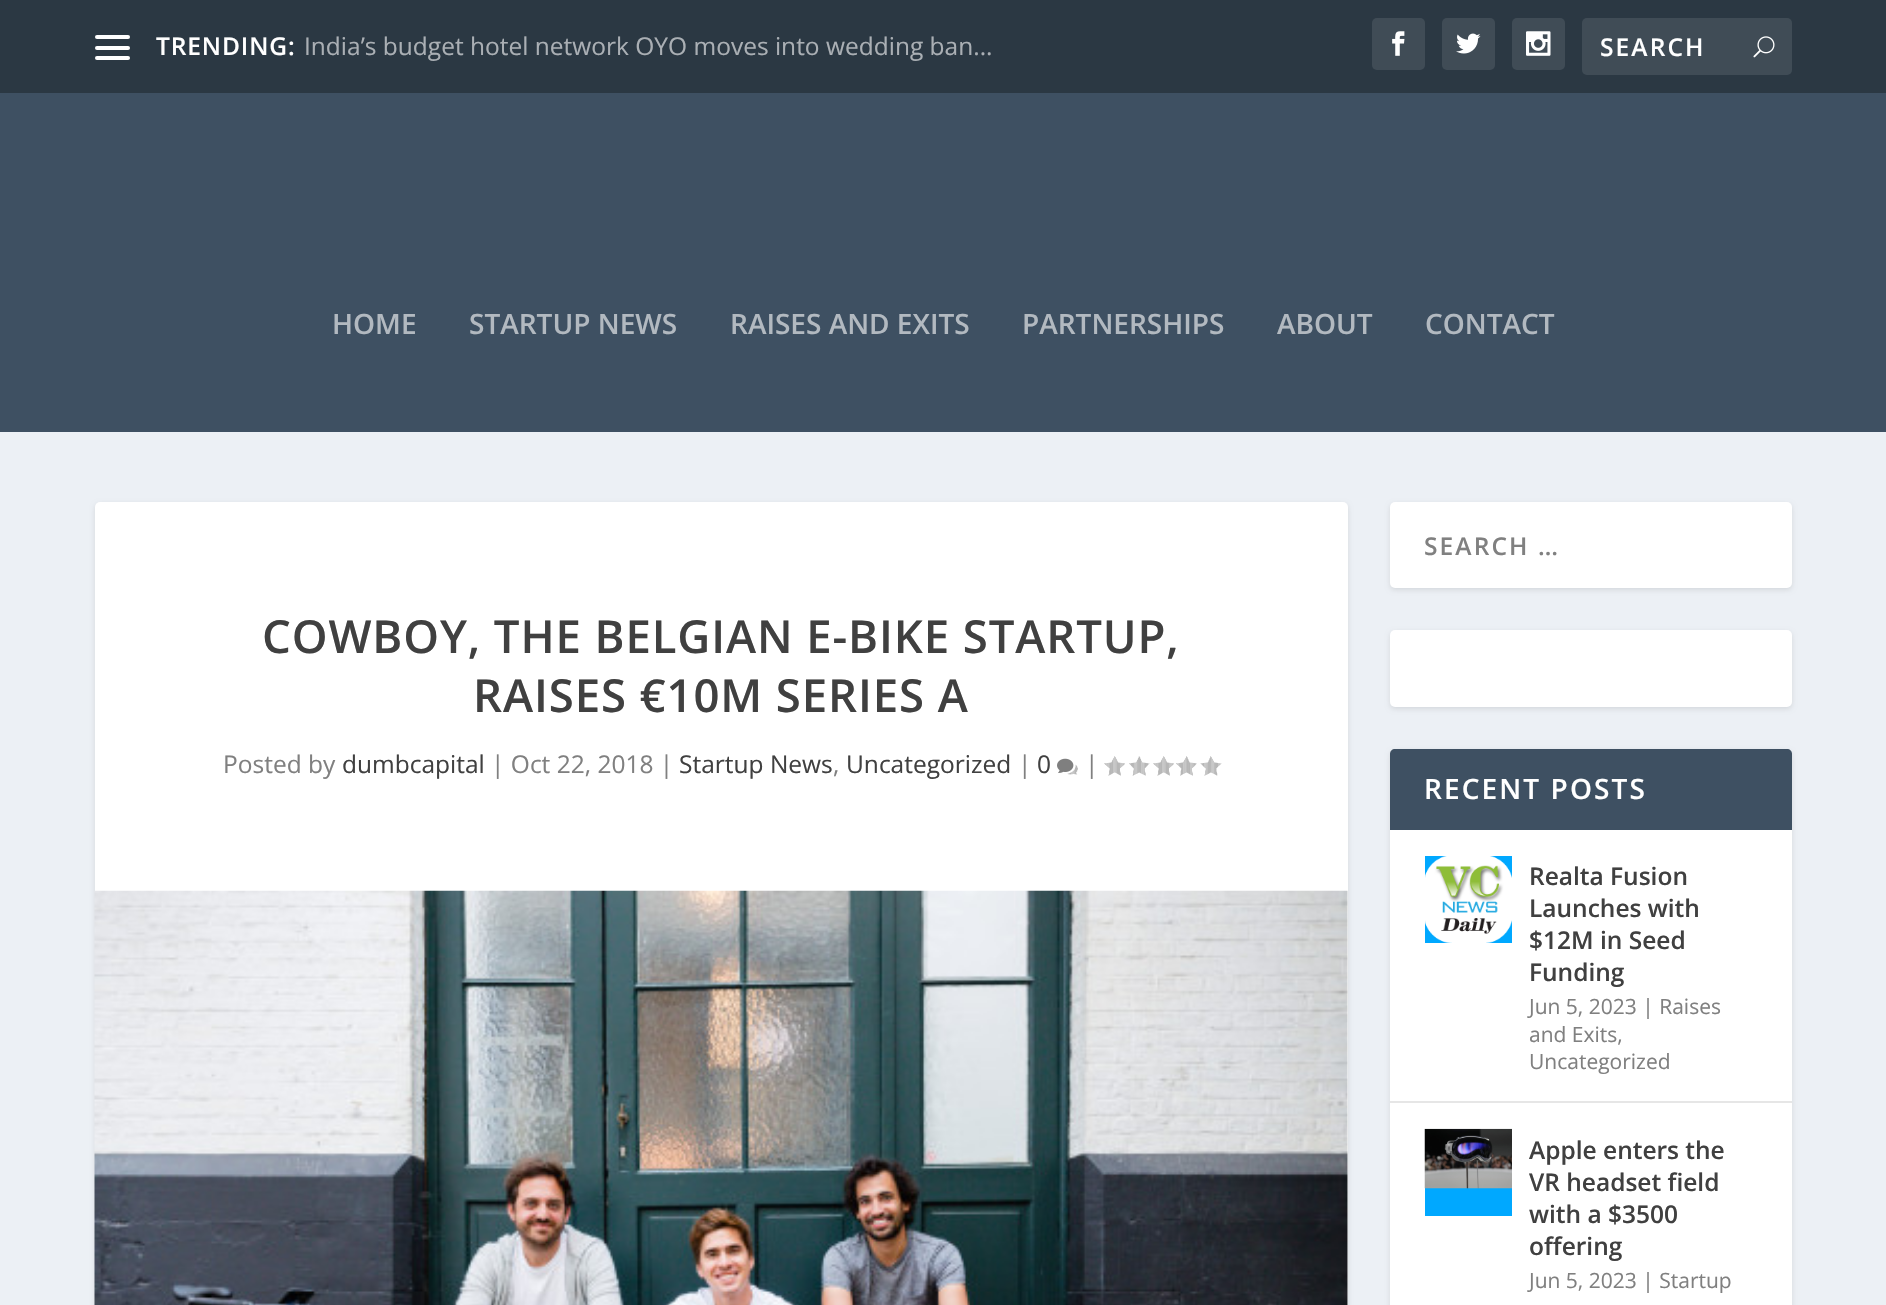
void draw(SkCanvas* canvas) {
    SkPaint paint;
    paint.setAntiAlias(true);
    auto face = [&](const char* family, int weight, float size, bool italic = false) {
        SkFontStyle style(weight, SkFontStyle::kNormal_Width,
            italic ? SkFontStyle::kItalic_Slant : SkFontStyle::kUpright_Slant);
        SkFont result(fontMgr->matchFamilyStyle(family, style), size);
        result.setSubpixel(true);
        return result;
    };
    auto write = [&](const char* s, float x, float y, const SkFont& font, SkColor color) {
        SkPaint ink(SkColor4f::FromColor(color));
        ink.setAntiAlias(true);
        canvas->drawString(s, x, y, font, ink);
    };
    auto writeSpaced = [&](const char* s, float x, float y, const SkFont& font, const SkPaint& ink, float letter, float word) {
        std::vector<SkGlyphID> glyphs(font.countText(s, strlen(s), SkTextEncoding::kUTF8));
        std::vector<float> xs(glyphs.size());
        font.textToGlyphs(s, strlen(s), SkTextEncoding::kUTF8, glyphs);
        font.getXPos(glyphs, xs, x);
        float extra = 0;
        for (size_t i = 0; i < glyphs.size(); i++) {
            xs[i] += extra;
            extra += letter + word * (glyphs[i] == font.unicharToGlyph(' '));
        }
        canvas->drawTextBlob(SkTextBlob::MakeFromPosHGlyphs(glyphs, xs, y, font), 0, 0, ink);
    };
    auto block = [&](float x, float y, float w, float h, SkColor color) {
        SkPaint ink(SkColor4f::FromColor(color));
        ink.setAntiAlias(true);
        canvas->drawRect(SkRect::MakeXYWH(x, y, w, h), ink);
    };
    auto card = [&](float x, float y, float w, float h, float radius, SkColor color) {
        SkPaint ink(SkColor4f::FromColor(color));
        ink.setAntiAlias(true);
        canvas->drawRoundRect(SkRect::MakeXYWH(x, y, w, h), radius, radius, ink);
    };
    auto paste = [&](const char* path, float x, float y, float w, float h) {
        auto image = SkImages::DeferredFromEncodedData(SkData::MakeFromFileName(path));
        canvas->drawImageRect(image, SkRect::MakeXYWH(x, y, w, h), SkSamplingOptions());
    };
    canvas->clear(SkColorSetRGB(236, 240, 245));
    block(0, 0, 1886, 93, SkColorSetRGB(43, 56, 67));
    card(95, 35, 35, 4, 2, SK_ColorWHITE);
    card(95, 46, 35, 4, 2, SK_ColorWHITE);
    card(95, 56, 35, 4, 2, SK_ColorWHITE);
    auto kFont1 = face("Open Sans", 600, 24.5f);
    paint.setColor(SK_ColorWHITE);
    writeSpaced("TRENDING:", 156, 55, kFont1, paint, 0.9f, 0);
    auto kFont2 = face("Open Sans", 400, 24.5f);
    write("India’s budget hotel network OYO moves into wedding ban...", 304, 55, kFont2, SkColorSetRGB(170, 175, 180));
    card(1372, 18, 53, 52, 5, SkColorSetRGB(64, 76, 86));
    paste("pic1.png", 1392, 31, 13, 25);
    card(1442, 18, 53, 52, 5, SkColorSetRGB(64, 76, 86));
    paste("pic2.png", 1456, 33, 25, 21);
    card(1512, 18, 53, 52, 5, SkColorSetRGB(64, 76, 86));
    paste("pic3.png", 1526, 31, 25, 25);
    card(1582, 18, 210, 57, 5, SkColorSetRGB(64, 76, 86));
    writeSpaced("SEARCH", 1600, 56, kFont1, paint, 2.1f, 0);
    paste("pic4.png", 1753, 36, 22, 22);
    block(0, 93, 1886, 339, SkColorSetRGB(62, 80, 98));
    auto kFont3 = face("Open Sans", 600, 28);
    write("HOME", 332, 334, kFont3, SkColorSetRGB(178, 185, 192));
    write("STARTUP NEWS", 469, 334, kFont3, SkColorSetRGB(178, 185, 192));
    write("RAISES AND EXITS", 730, 334, kFont3, SkColorSetRGB(178, 185, 192));
    write("PARTNERSHIPS", 1022, 334, kFont3, SkColorSetRGB(178, 185, 192));
    write("ABOUT", 1277, 334, kFont3, SkColorSetRGB(178, 185, 192));
    write("CONTACT", 1425, 334, kFont3, SkColorSetRGB(178, 185, 192));
    paint.setColor(SkColorSetARGB(26, 0, 0, 0));
    paint.setMaskFilter(SkMaskFilter::MakeBlur(kNormal_SkBlurStyle, 2.5f));
    canvas->drawRoundRect(SkRect::MakeXYWH(95, 504, 1253, 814), 5, 5, paint);
    paint.setMaskFilter(nullptr);
    card(95, 502, 1253, 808, 5, SK_ColorWHITE);
    auto kFont4 = face("Open Sans", 600, 45.5f);
    paint.setColor(SkColorSetRGB(64, 64, 64));
    writeSpaced("COWBOY, THE BELGIAN E-BIKE STARTUP,", 262, 653, kFont4, paint, 0.9f, 0);
    writeSpaced("RAISES €10M SERIES A", 473, 712, kFont4, paint, 0.9f, 0);
    write("Posted by", 223, 773, kFont2, SkColorSetRGB(128, 128, 128));
    write("dumbcapital", 342, 773, kFont2, SkColorSetRGB(64, 64, 64));
    write("| Oct 22, 2018 |", 491, 773, kFont2, SkColorSetRGB(128, 128, 128));
    write("Startup News", 679, 773, kFont2, SkColorSetRGB(64, 64, 64));
    write(",", 833, 773, kFont2, SkColorSetRGB(128, 128, 128));
    write("Uncategorized", 846, 773, kFont2, SkColorSetRGB(64, 64, 64));
    write("|", 1018, 773, kFont2, SkColorSetRGB(128, 128, 128));
    write("0", 1037, 773, kFont2, SkColorSetRGB(64, 64, 64));
    paste("pic5.png", 1057, 758, 21, 17);
    write("|", 1085, 773, kFont2, SkColorSetRGB(128, 128, 128));
    paste("pic6.png", 1104, 756, 21, 20);
    paste("pic7.png", 1129, 756, 21, 20);
    paste("pic6.png", 1153, 756, 21, 20);
    paste("pic8.png", 1176, 756, 21, 20);
    paste("pic9.png", 1200, 756, 22, 20);
    paste("pic10.png", 94, 890, 1254, 415);
    paint.setColor(SkColorSetARGB(26, 0, 0, 0));
    paint.setMaskFilter(SkMaskFilter::MakeBlur(kNormal_SkBlurStyle, 2.5f));
    canvas->drawRoundRect(SkRect::MakeXYWH(1390, 504, 402, 86), 5, 5, paint);
    paint.setMaskFilter(nullptr);
    card(1390, 502, 402, 86, 5, SK_ColorWHITE);
    paint.setColor(SkColorSetRGB(128, 128, 128));
    writeSpaced("SEARCH …", 1424, 555, kFont1, paint, 2.1f, 0);
    paint.setColor(SkColorSetARGB(26, 0, 0, 0));
    paint.setMaskFilter(SkMaskFilter::MakeBlur(kNormal_SkBlurStyle, 2.5f));
    canvas->drawRoundRect(SkRect::MakeXYWH(1390, 632, 402, 77), 5, 5, paint);
    paint.setMaskFilter(nullptr);
    card(1390, 630, 402, 77, 5, SK_ColorWHITE);
    paint.setMaskFilter(SkMaskFilter::MakeBlur(kNormal_SkBlurStyle, 2.5f));
    canvas->drawRoundRect(SkRect::MakeXYWH(1390, 751, 402, 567), 5, 5, paint);
    paint.setMaskFilter(nullptr);
    card(1390, 749, 402, 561, 5, SK_ColorWHITE);
    paint.setColor(SkColorSetRGB(62, 80, 98));
    canvas->drawPath(SkPathBuilder().moveTo(1395, 749).lineTo(1787, 749).cubicTo(1790, 749, 1792, 751, 1792, 754).lineTo(1792, 830).lineTo(1390, 830).lineTo(1390, 754).cubicTo(1390, 751, 1392, 749, 1395, 749).close().detach(), paint);
    paint.setColor(SK_ColorWHITE);
    writeSpaced("RECENT POSTS", 1424, 799, kFont3, paint, 2.1f, 0);
    block(1390, 1101, 402, 2, SkColorSetRGB(230, 230, 230));
    block(1425, 856, 87, 87, SkColorSetRGB(0, 168, 255));
    paste("pic11.png", 1425, 856, 87, 87);
    write("Realta Fusion", 1529, 885, kFont1, SkColorSetRGB(64, 64, 64));
    write("Launches with", 1529, 917, kFont1, SkColorSetRGB(64, 64, 64));
    write("$12M in Seed", 1529, 949, kFont1, SkColorSetRGB(64, 64, 64));
    write("Funding", 1529, 981, kFont1, SkColorSetRGB(64, 64, 64));
    auto kFont5 = face("Open Sans", 400, 21);
    write("Jun 5, 2023 | Raises", 1529, 1014, kFont5, SkColorSetRGB(128, 128, 128));
    write("and Exits,", 1529, 1042, kFont5, SkColorSetRGB(128, 128, 128));
    write("Uncategorized", 1529, 1069, kFont5, SkColorSetRGB(128, 128, 128));
    block(1425, 1188, 87, 28, SkColorSetRGB(0, 168, 255));
    paste("pic12.png", 1424, 1128, 88, 61);
    write("Apple enters the", 1529, 1159, kFont1, SkColorSetRGB(64, 64, 64));
    write("VR headset field", 1529, 1191, kFont1, SkColorSetRGB(64, 64, 64));
    write("with a $3500", 1529, 1223, kFont1, SkColorSetRGB(64, 64, 64));
    write("offering", 1529, 1255, kFont1, SkColorSetRGB(64, 64, 64));
    write("Jun 5, 2023 | Startup", 1529, 1288, kFont5, SkColorSetRGB(128, 128, 128));
}
